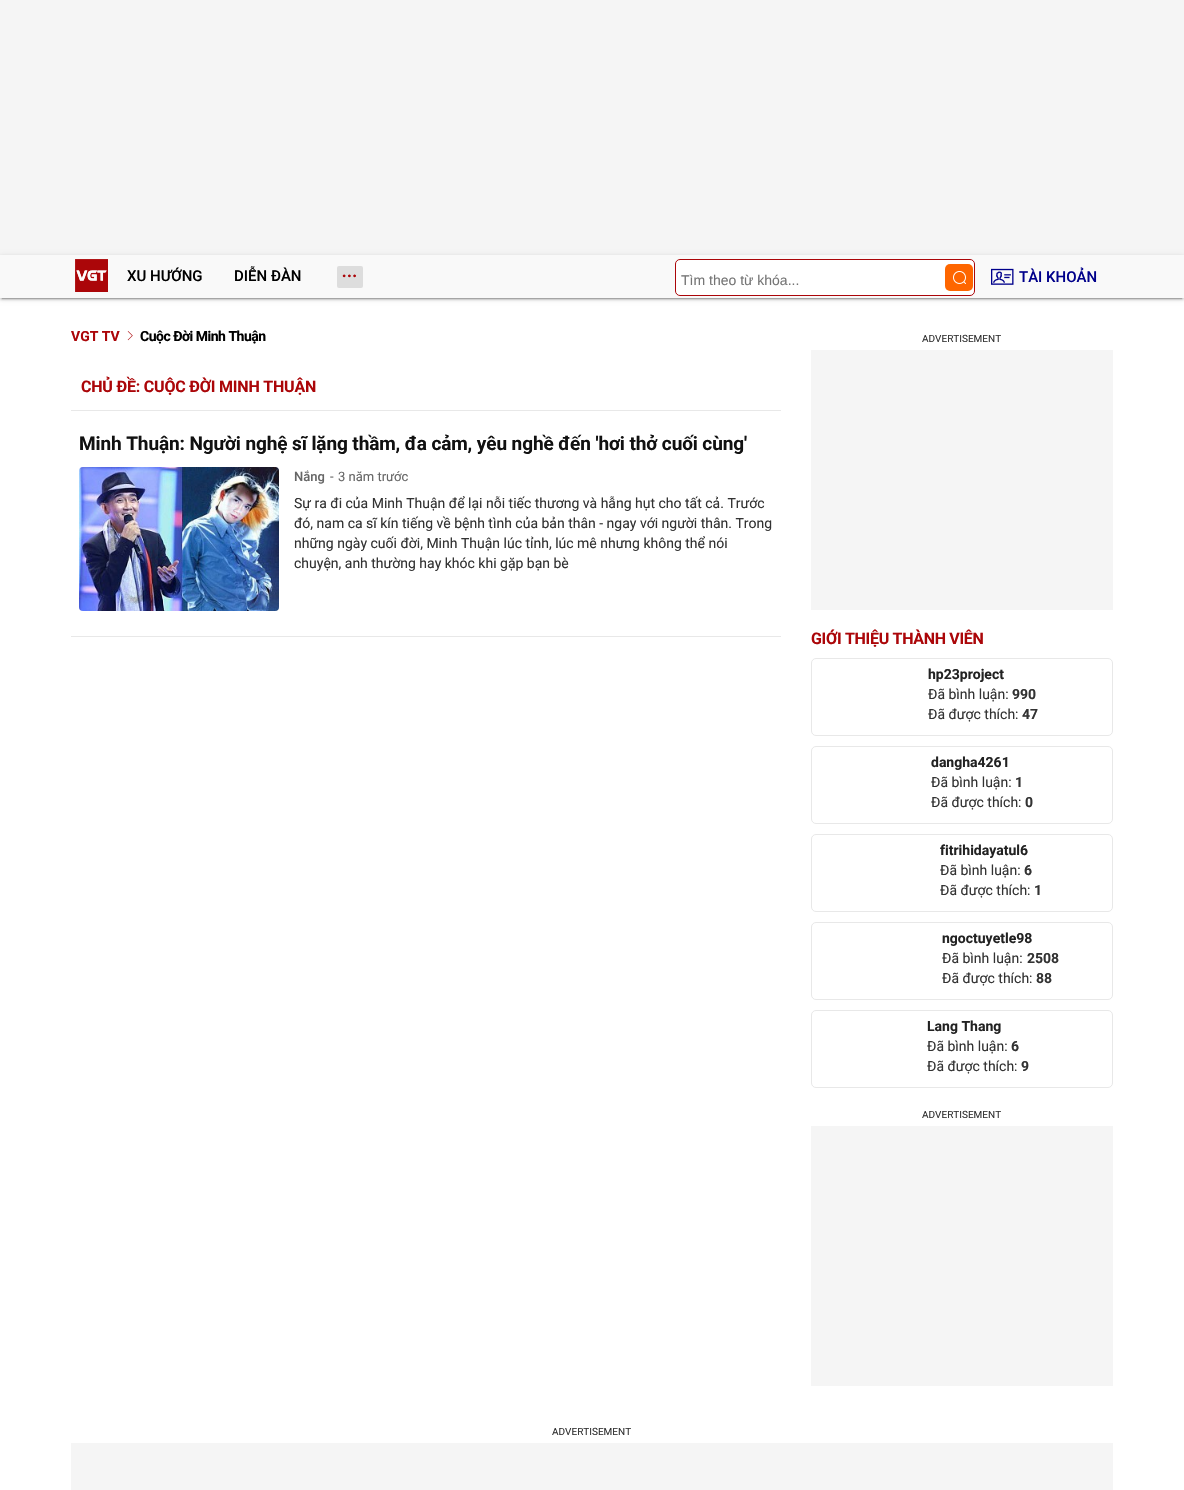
void draw(SkCanvas* canvas) {
    SkPaint paint;
    paint.setAntiAlias(true);
    auto face = [&](const char* family, int weight, float size, bool italic = false) {
        SkFontStyle style(weight, SkFontStyle::kNormal_Width,
            italic ? SkFontStyle::kItalic_Slant : SkFontStyle::kUpright_Slant);
        SkFont result(fontMgr->matchFamilyStyle(family, style), size);
        result.setSubpixel(true);
        return result;
    };
    auto write = [&](const char* s, float x, float y, const SkFont& font, SkColor color) {
        SkPaint ink(SkColor4f::FromColor(color));
        ink.setAntiAlias(true);
        canvas->drawString(s, x, y, font, ink);
    };
    auto writeSpaced = [&](const char* s, float x, float y, const SkFont& font, const SkPaint& ink, float letter, float word) {
        std::vector<SkGlyphID> glyphs(font.countText(s, strlen(s), SkTextEncoding::kUTF8));
        std::vector<float> xs(glyphs.size());
        font.textToGlyphs(s, strlen(s), SkTextEncoding::kUTF8, glyphs);
        font.getXPos(glyphs, xs, x);
        float extra = 0;
        for (size_t i = 0; i < glyphs.size(); i++) {
            xs[i] += extra;
            extra += letter + word * (glyphs[i] == font.unicharToGlyph(' '));
        }
        canvas->drawTextBlob(SkTextBlob::MakeFromPosHGlyphs(glyphs, xs, y, font), 0, 0, ink);
    };
    auto block = [&](float x, float y, float w, float h, SkColor color) {
        SkPaint ink(SkColor4f::FromColor(color));
        ink.setAntiAlias(true);
        canvas->drawRect(SkRect::MakeXYWH(x, y, w, h), ink);
    };
    auto card = [&](float x, float y, float w, float h, float radius, SkColor color) {
        SkPaint ink(SkColor4f::FromColor(color));
        ink.setAntiAlias(true);
        canvas->drawRoundRect(SkRect::MakeXYWH(x, y, w, h), radius, radius, ink);
    };
    auto paste = [&](const char* path, float x, float y, float w, float h) {
        auto image = SkImages::DeferredFromEncodedData(SkData::MakeFromFileName(path));
        canvas->drawImageRect(image, SkRect::MakeXYWH(x, y, w, h), SkSamplingOptions());
    };
    canvas->clear(SK_ColorWHITE);
    block(0, 0, 1184, 255, SkColorSetRGB(245, 245, 245));
    paint.setColor(SkColorSetARGB(51, 0, 0, 0));
    paint.setMaskFilter(SkMaskFilter::MakeBlur(kNormal_SkBlurStyle, 0.5f));
    canvas->drawRect(SkRect::MakeXYWH(2, 260, 1180, 39), paint);
    paint.setMaskFilter(nullptr);
    paint.setColor(SkColorSetARGB(31, 0, 0, 0));
    paint.setMaskFilter(SkMaskFilter::MakeBlur(kNormal_SkBlurStyle, 2.5f));
    canvas->drawRect(SkRect::MakeXYWH(0, 256, 1184, 43), paint);
    paint.setMaskFilter(nullptr);
    paint.setColor(SkColorSetARGB(36, 0, 0, 0));
    paint.setMaskFilter(SkMaskFilter::MakeBlur(kNormal_SkBlurStyle, 1));
    canvas->drawRect(SkRect::MakeXYWH(0, 257, 1184, 43), paint);
    paint.setMaskFilter(nullptr);
    block(0, 255, 1184, 43, SkColorSetRGB(249, 249, 249));
    paste("pic1.png", 75, 259, 33, 33);
    auto kFont1 = face("Roboto", 500, 15);
    write("XU HƯỚNG", 127, 281, kFont1, SK_ColorBLACK);
    write("DIỄN ĐÀN", 234, 281, kFont1, SK_ColorBLACK);
    card(337, 266, 26, 22, 2, SkColorSetRGB(221, 221, 221));
    auto kFont2 = face("Liberation Serif", 700, 17);
    paint.setColor(SkColorSetRGB(171, 6, 9));
    writeSpaced("...", 342, 277, kFont2, paint, 1, 0);
    paint.setColor(SK_ColorWHITE);
    canvas->drawRoundRect(SkRect::MakeXYWH(675.5f, 259.5f, 299, 36), 4.5f, 4.5f, paint);
    paint.setStyle(SkPaint::kStroke_Style);
    paint.setStrokeWidth(1);
    paint.setColor(SkColorSetRGB(171, 6, 9));
    canvas->drawRoundRect(SkRect::MakeXYWH(675.5f, 259.5f, 299, 36), 4.5f, 4.5f, paint);
    auto kFont3 = face("Liberation Sans", 400, 14);
    write("Tìm theo từ khóa...", 681, 285, kFont3, SkColorSetRGB(117, 117, 117));
    card(945, 264, 28, 27, 5, SkColorSetRGB(254, 102, 0));
    paste("pic2.png", 953, 271, 13, 13);
    paste("pic3.png", 991, 268, 23, 17);
    write("TÀI KHOẢN", 1019, 282, kFont1, SkColorSetRGB(0, 0, 139));
    auto kFont4 = face("Roboto", 700, 14);
    write("VGT TV", 71, 341, kFont4, SkColorSetRGB(171, 6, 9));
    paste("pic4.png", 127, 331, 6, 10);
    paint.setStyle(SkPaint::kFill_Style);
    paint.setColor(SK_ColorBLACK);
    writeSpaced("Cuộc Đời Minh Thuận", 140, 341, kFont4, paint, -0.5f, 0);
    block(71, 410, 710, 1, SkColorSetRGB(232, 232, 232));
    auto kFont5 = face("Roboto", 700, 16);
    paint.setColor(SkColorSetRGB(171, 6, 9));
    writeSpaced("CHỦ ĐỀ: CUỘC ĐỜI MINH THUẬN", 81, 392, kFont5, paint, -0.2f, 0);
    block(71, 636, 710, 1, SkColorSetRGB(232, 232, 232));
    auto kFont6 = face("Roboto", 700, 19);
    paint.setColor(SkColorSetRGB(17, 17, 17));
    writeSpaced("Minh Thuận: Người nghệ sĩ lặng thầm, đa cảm, yêu nghề đến 'hơi thở cuối cùng'", 79, 450, kFont6, paint, -0.1f, 0);
    paste("pic5.png", 79, 467, 200, 144);
    auto kFont7 = face("Roboto", 500, 13);
    write("Nắng", 294, 481, kFont7, SkColorSetRGB(102, 102, 102));
    auto kFont8 = face("Roboto", 400, 13);
    write("-", 330, 481, kFont8, SkColorSetRGB(102, 102, 102));
    write("3 năm trước", 338, 481, kFont8, SkColorSetRGB(102, 102, 102));
    auto kFont9 = face("Roboto", 400, 14);
    write("Sự ra đi của Minh Thuận để lại nỗi tiếc thương và hẫng hụt cho tất cả. Trước", 294, 508, kFont9, SkColorSetRGB(51, 51, 51));
    write("đó, nam ca sĩ kín tiếng về bệnh tình của bản thân - ngay với người thân. Trong", 294, 528, kFont9, SkColorSetRGB(51, 51, 51));
    write("những ngày cuối đời, Minh Thuận lúc tỉnh, lúc mê nhưng không thể nói", 294, 548, kFont9, SkColorSetRGB(51, 51, 51));
    write("chuyện, anh thường hay khóc khi gặp bạn bè", 294, 568, kFont9, SkColorSetRGB(51, 51, 51));
    auto kFont10 = face("Roboto", 400, 10);
    write("ADVERTISEMENT", 922, 342, kFont10, SkColorSetRGB(51, 51, 51));
    block(811, 350, 302, 260, SkColorSetRGB(245, 245, 245));
    paint.setColor(SkColorSetRGB(171, 6, 9));
    writeSpaced("GIỚI THIỆU THÀNH VIÊN", 811, 644, kFont5, paint, -0.3f, 0);
    paint.setStyle(SkPaint::kStroke_Style);
    paint.setColor(SkColorSetRGB(232, 232, 232));
    canvas->drawRoundRect(SkRect::MakeXYWH(811.5f, 658.5f, 301, 77), 4.5f, 4.5f, paint);
    write("hp23project", 928, 679, kFont4, SkColorSetRGB(34, 34, 34));
    write("Đã bình luận:", 928, 699, kFont9, SkColorSetRGB(51, 51, 51));
    write("990", 1012, 699, kFont4, SkColorSetRGB(51, 51, 51));
    write("Đã được thích:", 928, 719, kFont9, SkColorSetRGB(51, 51, 51));
    write("47", 1022, 719, kFont4, SkColorSetRGB(51, 51, 51));
    canvas->drawRoundRect(SkRect::MakeXYWH(811.5f, 746.5f, 301, 77), 4.5f, 4.5f, paint);
    write("dangha4261", 931, 767, kFont4, SkColorSetRGB(34, 34, 34));
    write("Đã bình luận:", 931, 787, kFont9, SkColorSetRGB(51, 51, 51));
    write("1", 1015, 787, kFont4, SkColorSetRGB(51, 51, 51));
    write("Đã được thích:", 931, 807, kFont9, SkColorSetRGB(51, 51, 51));
    write("0", 1025, 807, kFont4, SkColorSetRGB(51, 51, 51));
    canvas->drawRoundRect(SkRect::MakeXYWH(811.5f, 834.5f, 301, 77), 4.5f, 4.5f, paint);
    write("fitrihidayatul6", 940, 855, kFont4, SkColorSetRGB(34, 34, 34));
    write("Đã bình luận:", 940, 875, kFont9, SkColorSetRGB(51, 51, 51));
    write("6", 1024, 875, kFont4, SkColorSetRGB(51, 51, 51));
    write("Đã được thích:", 940, 895, kFont9, SkColorSetRGB(51, 51, 51));
    write("1", 1034, 895, kFont4, SkColorSetRGB(51, 51, 51));
    canvas->drawRoundRect(SkRect::MakeXYWH(811.5f, 922.5f, 301, 77), 4.5f, 4.5f, paint);
    write("ngoctuyetle98", 942, 943, kFont4, SkColorSetRGB(34, 34, 34));
    write("Đã bình luận:", 942, 963, kFont9, SkColorSetRGB(51, 51, 51));
    write("2508", 1027, 963, kFont4, SkColorSetRGB(51, 51, 51));
    write("Đã được thích:", 942, 983, kFont9, SkColorSetRGB(51, 51, 51));
    write("88", 1036, 983, kFont4, SkColorSetRGB(51, 51, 51));
    canvas->drawRoundRect(SkRect::MakeXYWH(811.5f, 1010.5f, 301, 77), 4.5f, 4.5f, paint);
    write("Lang Thang", 927, 1031, kFont4, SkColorSetRGB(34, 34, 34));
    write("Đã bình luận:", 927, 1051, kFont9, SkColorSetRGB(51, 51, 51));
    write("6", 1011, 1051, kFont4, SkColorSetRGB(51, 51, 51));
    write("Đã được thích:", 927, 1071, kFont9, SkColorSetRGB(51, 51, 51));
    write("9", 1021, 1071, kFont4, SkColorSetRGB(51, 51, 51));
    write("ADVERTISEMENT", 922, 1118, kFont10, SkColorSetRGB(51, 51, 51));
    block(811, 1126, 302, 260, SkColorSetRGB(245, 245, 245));
    write("ADVERTISEMENT", 552, 1435, kFont10, SkColorSetRGB(51, 51, 51));
    block(71, 1443, 1042, 47, SkColorSetRGB(245, 245, 245));
}
